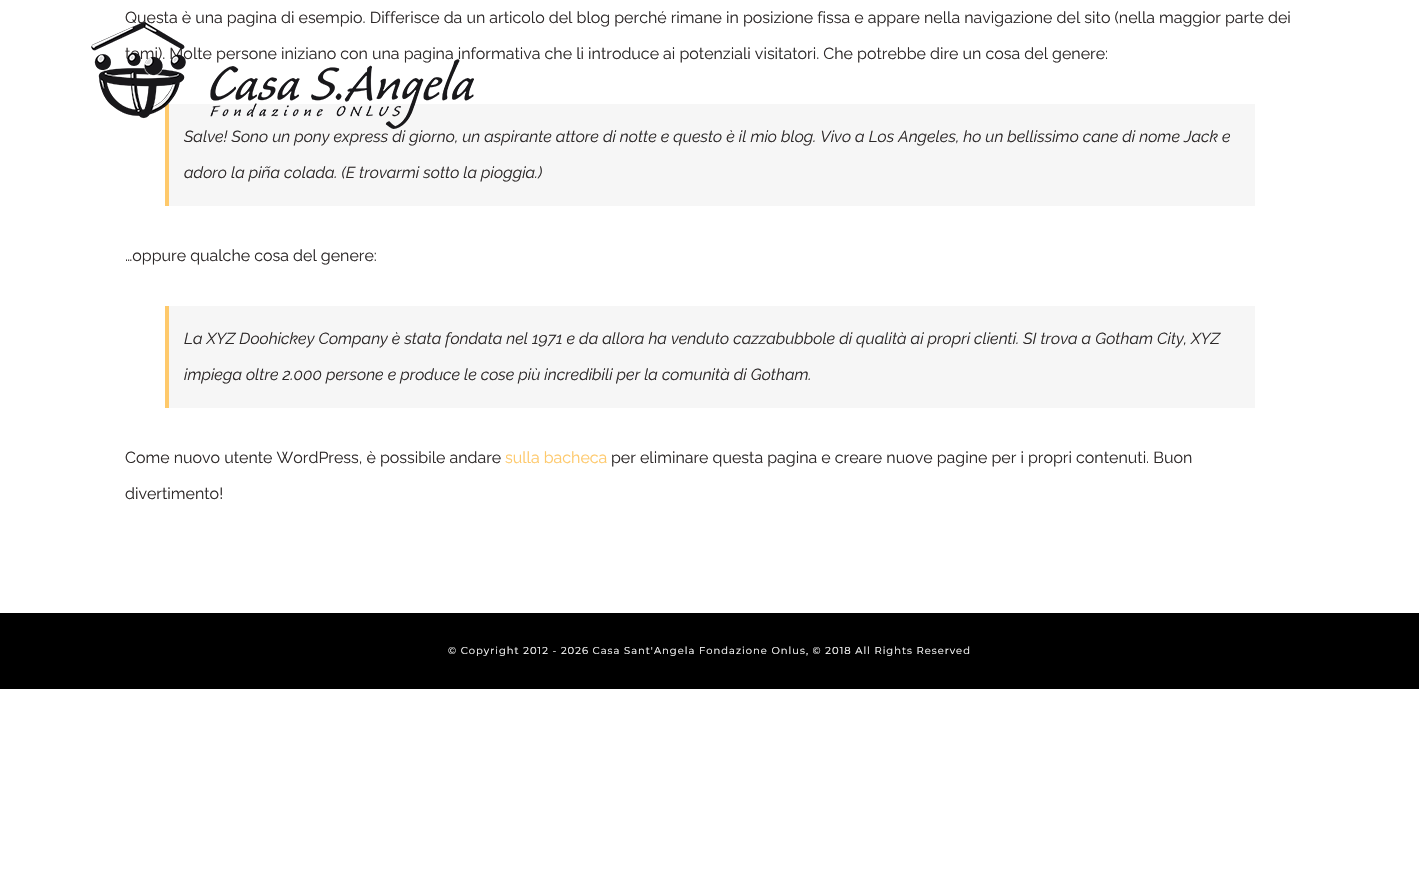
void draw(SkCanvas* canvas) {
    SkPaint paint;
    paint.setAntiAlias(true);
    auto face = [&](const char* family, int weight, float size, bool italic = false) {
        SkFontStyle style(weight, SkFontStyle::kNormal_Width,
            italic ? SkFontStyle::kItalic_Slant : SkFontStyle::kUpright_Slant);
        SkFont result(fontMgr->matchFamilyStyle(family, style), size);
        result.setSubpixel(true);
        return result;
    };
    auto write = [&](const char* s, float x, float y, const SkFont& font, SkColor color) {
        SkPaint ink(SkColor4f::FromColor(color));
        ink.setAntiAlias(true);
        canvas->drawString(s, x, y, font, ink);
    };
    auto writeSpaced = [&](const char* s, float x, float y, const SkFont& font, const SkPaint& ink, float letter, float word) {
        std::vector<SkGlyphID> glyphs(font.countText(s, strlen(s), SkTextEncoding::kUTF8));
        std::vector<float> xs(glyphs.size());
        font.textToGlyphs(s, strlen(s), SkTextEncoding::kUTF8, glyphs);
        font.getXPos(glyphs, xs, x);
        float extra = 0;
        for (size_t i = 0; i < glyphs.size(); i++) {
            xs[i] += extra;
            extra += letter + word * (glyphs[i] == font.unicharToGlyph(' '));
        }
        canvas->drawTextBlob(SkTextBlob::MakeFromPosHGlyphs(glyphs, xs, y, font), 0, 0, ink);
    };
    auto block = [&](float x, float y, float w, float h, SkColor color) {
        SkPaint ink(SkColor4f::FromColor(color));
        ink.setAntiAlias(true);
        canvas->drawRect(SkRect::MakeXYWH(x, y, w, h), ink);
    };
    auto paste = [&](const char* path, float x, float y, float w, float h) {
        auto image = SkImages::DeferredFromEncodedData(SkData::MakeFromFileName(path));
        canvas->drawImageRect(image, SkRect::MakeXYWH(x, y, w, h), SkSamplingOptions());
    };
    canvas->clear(SK_ColorWHITE);
    auto kFont1 = face("Raleway", 100, 16);
    write("Questa è una pagina di esempio. Differisce da un articolo del blog perché rimane in posizione fissa e appare nella navigazione del sito (nella maggior parte dei", 125, 23, kFont1, SkColorSetRGB(45, 41, 41));
    write("temi). Molte persone iniziano con una pagina informativa che li introduce ai potenziali visitatori. Che potrebbe dire un cosa del genere:", 125, 59, kFont1, SkColorSetRGB(45, 41, 41));
    block(169, 104, 1086, 102, SkColorSetRGB(246, 246, 246));
    block(165, 104, 4, 102, SkColorSetRGB(254, 201, 107));
    auto kFont2 = face("Raleway", 100, 16, true);
    write("Salve! Sono un pony express di giorno, un aspirante attore di notte e questo è il mio blog. Vivo a Los Angeles, ho un bellissimo cane di nome Jack e", 184, 142, kFont2, SkColorSetRGB(45, 41, 41));
    write("adoro la piña colada. (E trovarmi sotto la pioggia.)", 184, 178, kFont2, SkColorSetRGB(45, 41, 41));
    write("…oppure qualche cosa del genere:", 125, 261, kFont1, SkColorSetRGB(45, 41, 41));
    block(169, 306, 1086, 102, SkColorSetRGB(246, 246, 246));
    block(165, 306, 4, 102, SkColorSetRGB(254, 201, 107));
    write("La XYZ Doohickey Company è stata fondata nel 1971 e da allora ha venduto cazzabubbole di qualità ai propri clienti. SI trova a Gotham City, XYZ", 184, 344, kFont2, SkColorSetRGB(45, 41, 41));
    write("impiega oltre 2.000 persone e produce le cose più incredibili per la comunità di Gotham.", 184, 380, kFont2, SkColorSetRGB(45, 41, 41));
    write("Come nuovo utente WordPress, è possibile andare", 125, 463, kFont1, SkColorSetRGB(45, 41, 41));
    write("sulla bacheca", 505, 463, kFont1, SkColorSetRGB(254, 201, 107));
    write("per eliminare questa pagina e creare nuove pagine per i propri contenuti. Buon", 611, 463, kFont1, SkColorSetRGB(45, 41, 41));
    write("divertimento!", 125, 499, kFont1, SkColorSetRGB(45, 41, 41));
    paste("pic1.png", 91, 22, 383, 107);
    block(0, 613, 1419, 76, SK_ColorBLACK);
    auto kFont3 = face("Montserrat", 100, 10);
    paint.setColor(SK_ColorWHITE);
    writeSpaced("© Copyright 2012 - 2026 Casa Sant'Angela Fondazione Onlus, © 2018 All Rights Reserved", 448, 654, kFont3, paint, 1, 0);
}
